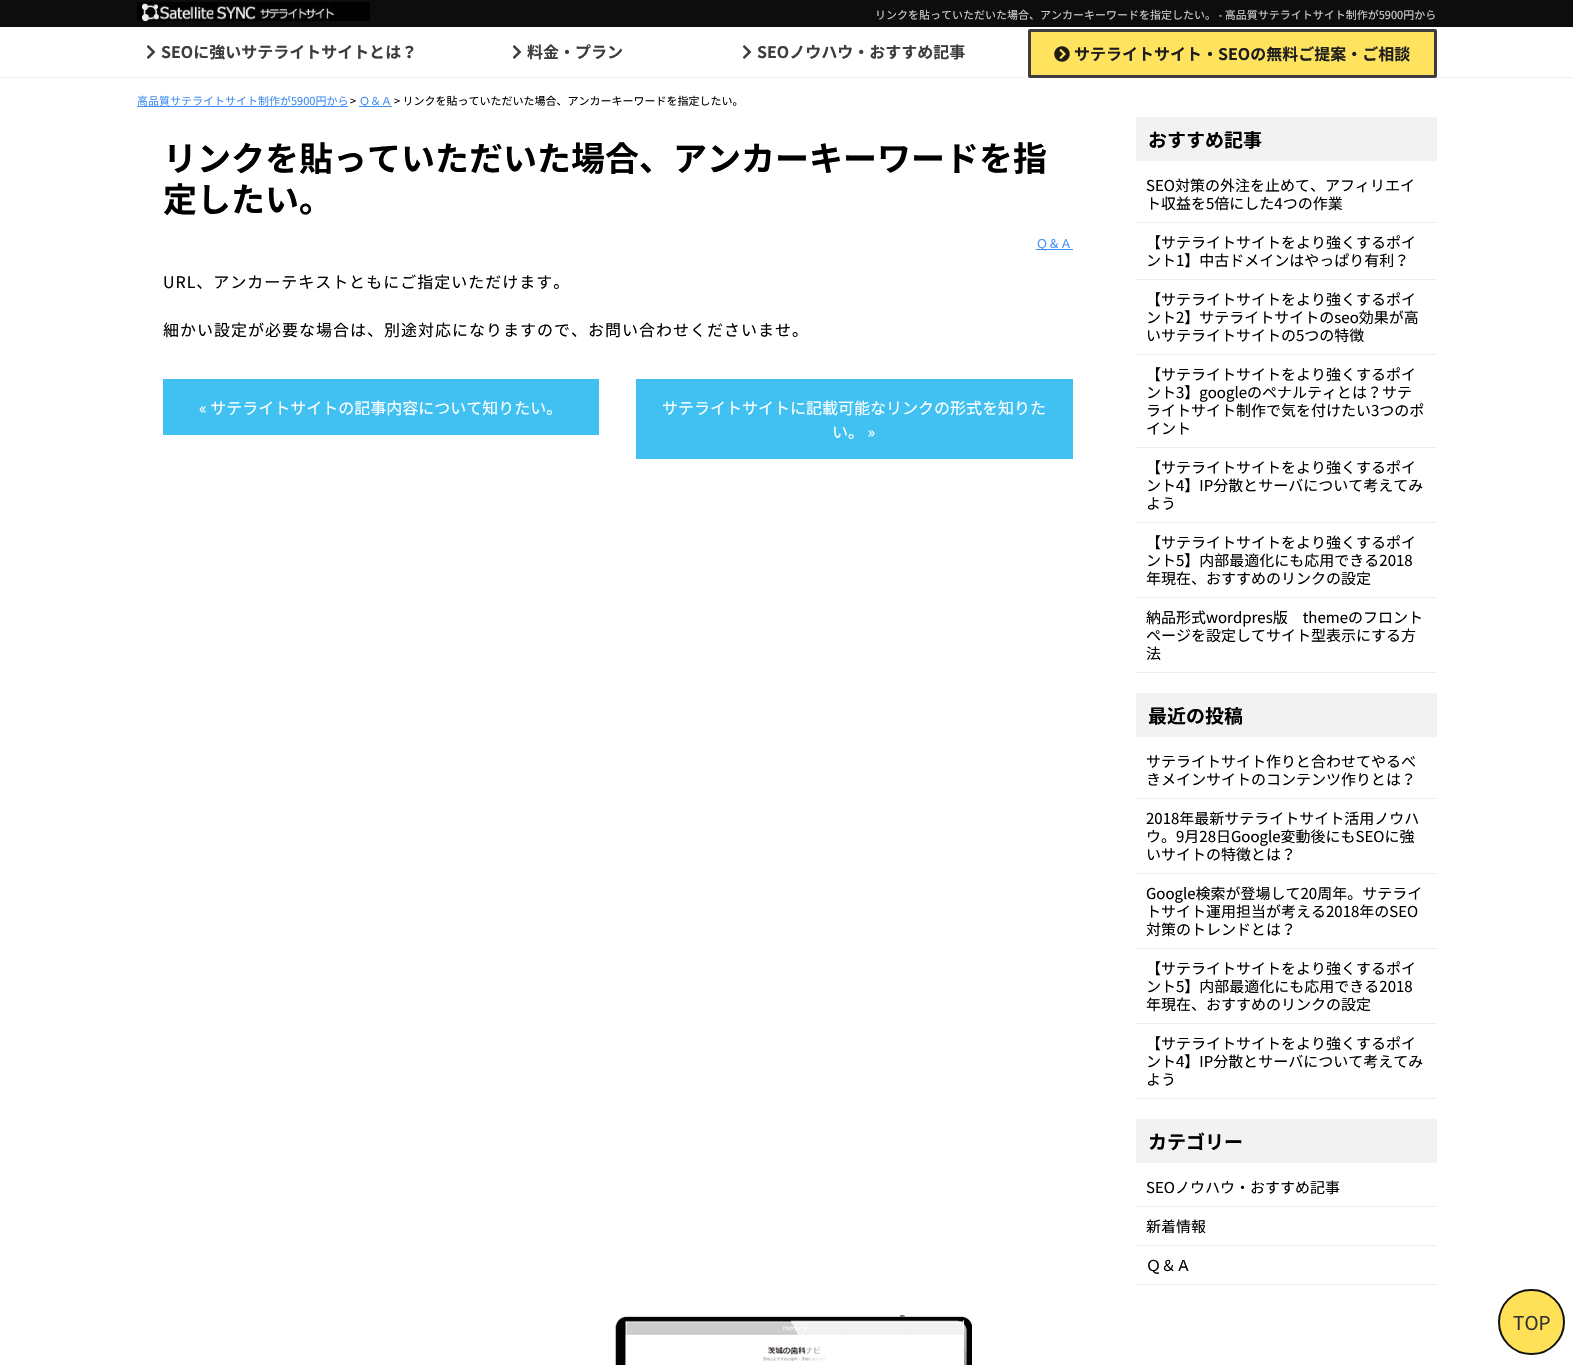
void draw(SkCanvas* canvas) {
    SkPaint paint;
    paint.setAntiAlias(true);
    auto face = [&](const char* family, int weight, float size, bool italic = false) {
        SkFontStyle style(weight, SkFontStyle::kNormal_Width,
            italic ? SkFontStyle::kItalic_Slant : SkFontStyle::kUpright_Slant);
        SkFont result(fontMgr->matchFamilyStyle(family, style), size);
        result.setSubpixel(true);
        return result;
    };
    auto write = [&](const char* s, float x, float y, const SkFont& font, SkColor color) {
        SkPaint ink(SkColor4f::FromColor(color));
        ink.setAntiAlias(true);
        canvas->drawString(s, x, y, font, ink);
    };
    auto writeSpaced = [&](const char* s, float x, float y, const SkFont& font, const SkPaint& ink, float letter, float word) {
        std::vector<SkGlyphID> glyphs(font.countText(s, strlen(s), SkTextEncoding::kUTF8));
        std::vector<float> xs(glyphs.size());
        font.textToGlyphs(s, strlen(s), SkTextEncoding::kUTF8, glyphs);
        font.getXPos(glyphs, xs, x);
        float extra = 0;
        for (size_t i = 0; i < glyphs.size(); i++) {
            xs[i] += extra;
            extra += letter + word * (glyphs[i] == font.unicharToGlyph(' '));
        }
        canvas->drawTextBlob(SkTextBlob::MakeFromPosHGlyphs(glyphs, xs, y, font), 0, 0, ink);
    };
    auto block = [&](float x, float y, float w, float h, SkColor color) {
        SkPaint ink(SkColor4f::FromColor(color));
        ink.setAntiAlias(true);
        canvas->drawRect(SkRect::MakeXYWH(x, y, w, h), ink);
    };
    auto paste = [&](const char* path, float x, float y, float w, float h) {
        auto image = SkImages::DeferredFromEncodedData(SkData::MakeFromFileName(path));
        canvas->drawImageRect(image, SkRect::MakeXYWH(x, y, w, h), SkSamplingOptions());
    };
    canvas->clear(SK_ColorWHITE);
    block(0, 0, 1573, 27, SkColorSetRGB(13, 13, 13));
    paste("pic1.png", 137, 2, 233, 19);
    auto kFont1 = face("Noto Sans JP", 400, 11);
    write("リンクを貼っていただいた場合、アンカーキーワードを指定したい。 - 高品質サテライトサイト制作が5900円から", 875, 19, kFont1, SkColorSetRGB(207, 207, 207));
    block(0, 77, 1573, 1, SkColorSetRGB(239, 239, 239));
    paste("pic2.png", 146, 45, 10, 14);
    auto kFont2 = face("Noto Sans JP", 700, 16);
    write("SEOに強いサテライトサイトとは？", 161, 58, kFont2, SkColorSetRGB(61, 61, 61));
    paste("pic2.png", 512, 45, 10, 14);
    write("料金・プラン", 527, 58, kFont2, SkColorSetRGB(61, 61, 61));
    paste("pic2.png", 742, 45, 10, 14);
    write("SEOノウハウ・おすすめ記事", 757, 58, kFont2, SkColorSetRGB(61, 61, 61));
    paint.setColor(SkColorSetRGB(255, 227, 95));
    canvas->drawRoundRect(SkRect::MakeXYWH(1029.5f, 30.5f, 406, 46), 0.5f, 0.5f, paint);
    paint.setStyle(SkPaint::kStroke_Style);
    paint.setStrokeWidth(3);
    paint.setColor(SkColorSetRGB(61, 61, 61));
    canvas->drawRoundRect(SkRect::MakeXYWH(1029.5f, 30.5f, 406, 46), 0.5f, 0.5f, paint);
    paste("pic3.png", 1054, 46, 16, 16);
    write("サテライトサイト・SEOの無料ご提案・ご相談", 1074, 60, kFont2, SkColorSetRGB(29, 29, 29));
    write("高品質サテライトサイト制作が5900円から", 137, 105, kFont1, SkColorSetRGB(64, 142, 241));
    block(137, 106, 211, 1, SkColorSetRGB(64, 142, 241));
    write(">", 350, 105, kFont1, SK_ColorBLACK);
    block(359, 106, 33, 1, SkColorSetRGB(64, 142, 241));
    write("Ｑ＆Ａ", 359, 105, kFont1, SkColorSetRGB(64, 142, 241));
    write("> リンクを貼っていただいた場合、アンカーキーワードを指定したい。", 394, 105, kFont1, SK_ColorBLACK);
    auto kFont3 = face("Noto Sans JP", 700, 34);
    write("リンクを貼っていただいた場合、アンカーキーワードを指", 163, 171, kFont3, SK_ColorBLACK);
    write("定したい。", 163, 212, kFont3, SK_ColorBLACK);
    block(1036, 249, 37, 1, SkColorSetRGB(64, 142, 241));
    auto kFont4 = face("Noto Sans JP", 400, 12);
    write("Ｑ＆Ａ", 1036, 248, kFont4, SkColorSetRGB(64, 142, 241));
    auto kFont5 = face("Noto Sans JP", 400, 16);
    paint.setStyle(SkPaint::kFill_Style);
    paint.setColor(SK_ColorBLACK);
    writeSpaced("URL、アンカーテキストともにご指定いただけます。", 163, 288, kFont5, paint, 1, 0);
    writeSpaced("細かい設定が必要な場合は、別途対応になりますので、お問い合わせくださいませ。", 163, 336, kFont5, paint, 1, 0);
    block(163, 379, 436, 56, SkColorSetRGB(64, 193, 241));
    write("« サテライトサイトの記事内容について知りたい。", 199, 414, kFont5, SK_ColorWHITE);
    block(636, 379, 437, 80, SkColorSetRGB(64, 193, 241));
    write("サテライトサイトに記載可能なリンクの形式を知りた", 662, 414, kFont5, SK_ColorWHITE);
    write("い。 »", 832, 438, kFont5, SK_ColorWHITE);
    block(1136, 117, 301, 44, SkColorSetRGB(242, 242, 242));
    auto kFont6 = face("Noto Sans JP", 700, 19);
    write("おすすめ記事", 1148, 147, kFont6, SK_ColorBLACK);
    block(1136, 222, 301, 1, SkColorSetRGB(238, 238, 238));
    auto kFont7 = face("Noto Sans JP", 400, 15);
    write("SEO対策の外注を止めて、アフィリエイ", 1146, 191, kFont7, SK_ColorBLACK);
    write("ト収益を5倍にした4つの作業", 1146, 209, kFont7, SK_ColorBLACK);
    block(1136, 279, 301, 1, SkColorSetRGB(238, 238, 238));
    write("【サテライトサイトをより強くするポイ", 1146, 248, kFont7, SK_ColorBLACK);
    write("ント1】中古ドメインはやっぱり有利？", 1146, 266, kFont7, SK_ColorBLACK);
    block(1136, 354, 301, 1, SkColorSetRGB(238, 238, 238));
    write("【サテライトサイトをより強くするポイ", 1146, 305, kFont7, SK_ColorBLACK);
    write("ント2】サテライトサイトのseo効果が高", 1146, 323, kFont7, SK_ColorBLACK);
    write("いサテライトサイトの5つの特徴", 1146, 341, kFont7, SK_ColorBLACK);
    block(1136, 447, 301, 1, SkColorSetRGB(238, 238, 238));
    write("【サテライトサイトをより強くするポイ", 1146, 380, kFont7, SK_ColorBLACK);
    write("ント3】googleのペナルティとは？サテ", 1146, 398, kFont7, SK_ColorBLACK);
    write("ライトサイト制作で気を付けたい3つのポ", 1146, 416, kFont7, SK_ColorBLACK);
    write("イント", 1146, 434, kFont7, SK_ColorBLACK);
    block(1136, 522, 301, 1, SkColorSetRGB(238, 238, 238));
    write("【サテライトサイトをより強くするポイ", 1146, 473, kFont7, SK_ColorBLACK);
    write("ント4】IP分散とサーバについて考えてみ", 1146, 491, kFont7, SK_ColorBLACK);
    write("よう", 1146, 509, kFont7, SK_ColorBLACK);
    block(1136, 597, 301, 1, SkColorSetRGB(238, 238, 238));
    write("【サテライトサイトをより強くするポイ", 1146, 548, kFont7, SK_ColorBLACK);
    write("ント5】内部最適化にも応用できる2018", 1146, 566, kFont7, SK_ColorBLACK);
    write("年現在、おすすめのリンクの設定", 1146, 584, kFont7, SK_ColorBLACK);
    block(1136, 672, 301, 1, SkColorSetRGB(238, 238, 238));
    write("納品形式wordpres版　themeのフロント", 1146, 623, kFont7, SK_ColorBLACK);
    write("ページを設定してサイト型表示にする方", 1146, 641, kFont7, SK_ColorBLACK);
    write("法", 1146, 659, kFont7, SK_ColorBLACK);
    block(1136, 693, 301, 44, SkColorSetRGB(242, 242, 242));
    write("最近の投稿", 1148, 723, kFont6, SK_ColorBLACK);
    block(1136, 798, 301, 1, SkColorSetRGB(238, 238, 238));
    write("サテライトサイト作りと合わせてやるべ", 1146, 767, kFont7, SK_ColorBLACK);
    write("きメインサイトのコンテンツ作りとは？", 1146, 785, kFont7, SK_ColorBLACK);
    block(1136, 873, 301, 1, SkColorSetRGB(238, 238, 238));
    write("2018年最新サテライトサイト活用ノウハ", 1146, 824, kFont7, SK_ColorBLACK);
    write("ウ。9月28日Google変動後にもSEOに強", 1146, 842, kFont7, SK_ColorBLACK);
    write("いサイトの特徴とは？", 1146, 860, kFont7, SK_ColorBLACK);
    block(1136, 948, 301, 1, SkColorSetRGB(238, 238, 238));
    write("Google検索が登場して20周年。サテライ", 1146, 899, kFont7, SK_ColorBLACK);
    write("トサイト運用担当が考える2018年のSEO", 1146, 917, kFont7, SK_ColorBLACK);
    write("対策のトレンドとは？", 1146, 935, kFont7, SK_ColorBLACK);
    block(1136, 1023, 301, 1, SkColorSetRGB(238, 238, 238));
    write("【サテライトサイトをより強くするポイ", 1146, 974, kFont7, SK_ColorBLACK);
    write("ント5】内部最適化にも応用できる2018", 1146, 992, kFont7, SK_ColorBLACK);
    write("年現在、おすすめのリンクの設定", 1146, 1010, kFont7, SK_ColorBLACK);
    block(1136, 1098, 301, 1, SkColorSetRGB(238, 238, 238));
    write("【サテライトサイトをより強くするポイ", 1146, 1049, kFont7, SK_ColorBLACK);
    write("ント4】IP分散とサーバについて考えてみ", 1146, 1067, kFont7, SK_ColorBLACK);
    write("よう", 1146, 1085, kFont7, SK_ColorBLACK);
    block(1136, 1119, 301, 44, SkColorSetRGB(242, 242, 242));
    write("カテゴリー", 1148, 1149, kFont6, SK_ColorBLACK);
    block(1136, 1206, 301, 1, SkColorSetRGB(238, 238, 238));
    write("SEOノウハウ・おすすめ記事", 1146, 1193, kFont7, SK_ColorBLACK);
    block(1136, 1245, 301, 1, SkColorSetRGB(238, 238, 238));
    write("新着情報", 1146, 1232, kFont7, SK_ColorBLACK);
    block(1136, 1284, 301, 1, SkColorSetRGB(238, 238, 238));
    write("Ｑ＆Ａ", 1146, 1271, kFont7, SK_ColorBLACK);
    paste("pic4.png", 615, 1315, 357, 50);
    paint.setColor(SkColorSetRGB(255, 225, 87));
    canvas->drawRoundRect(SkRect::MakeXYWH(1499, 1290, 65, 64), 32, 32, paint);
    paint.setStyle(SkPaint::kStroke_Style);
    paint.setStrokeWidth(2);
    paint.setColor(SkColorSetRGB(17, 17, 17));
    canvas->drawRoundRect(SkRect::MakeXYWH(1499, 1290, 65, 64), 32, 32, paint);
    auto kFont8 = face("Noto Sans JP", 400, 19);
    write("TOP", 1513, 1330, kFont8, SkColorSetRGB(51, 51, 51));
}
